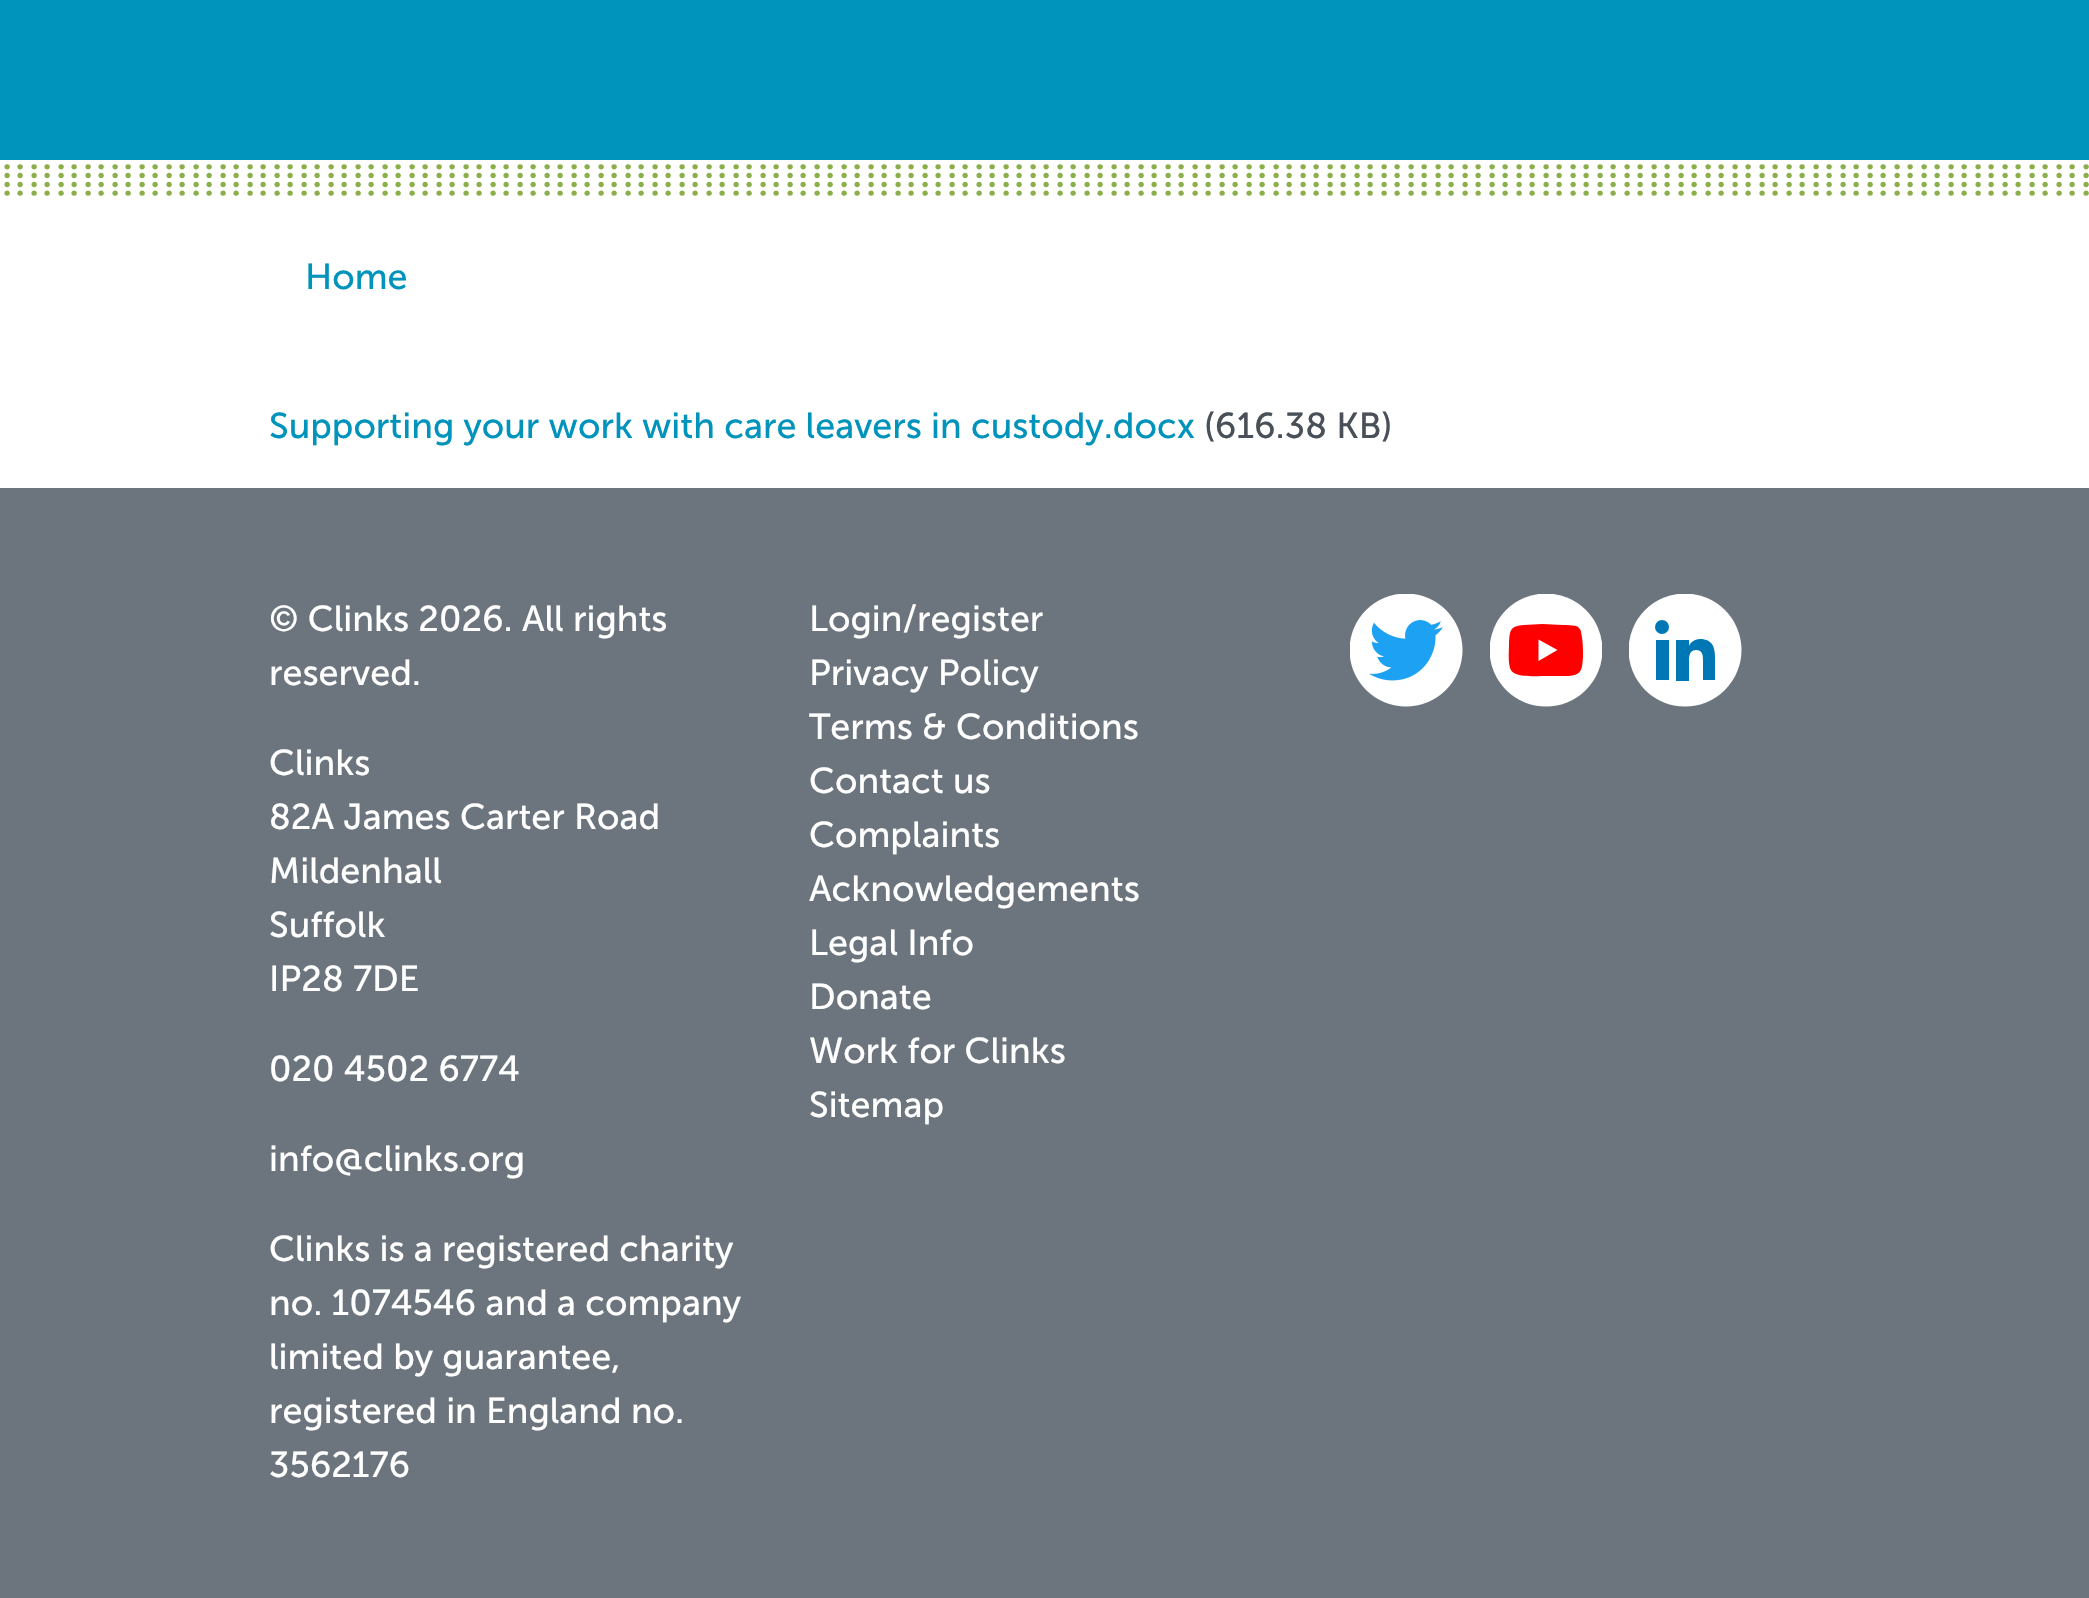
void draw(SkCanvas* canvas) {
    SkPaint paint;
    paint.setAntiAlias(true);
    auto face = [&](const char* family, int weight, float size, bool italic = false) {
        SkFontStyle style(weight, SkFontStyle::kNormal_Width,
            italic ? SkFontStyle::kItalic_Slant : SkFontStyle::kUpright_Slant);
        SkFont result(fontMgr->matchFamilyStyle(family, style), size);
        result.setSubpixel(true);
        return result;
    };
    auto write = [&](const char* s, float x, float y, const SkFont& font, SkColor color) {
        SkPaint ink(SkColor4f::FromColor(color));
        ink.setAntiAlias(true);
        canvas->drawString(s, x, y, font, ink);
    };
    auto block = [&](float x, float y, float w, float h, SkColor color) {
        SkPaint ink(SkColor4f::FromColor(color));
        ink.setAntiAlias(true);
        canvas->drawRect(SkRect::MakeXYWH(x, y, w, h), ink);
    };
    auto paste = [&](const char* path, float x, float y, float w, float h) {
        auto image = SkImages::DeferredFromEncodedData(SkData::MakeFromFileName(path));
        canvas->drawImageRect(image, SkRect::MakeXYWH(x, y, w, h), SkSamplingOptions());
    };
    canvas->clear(SK_ColorWHITE);
    block(0, 0, 2089, 160, SkColorSetRGB(0, 147, 187));
    paste("pic1.png", 4, 164, 2085, 32);
    auto kFont1 = face("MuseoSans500", 400, 36);
    write("Home", 305, 289, kFont1, SkColorSetRGB(0, 147, 187));
    write("Supporting your work with care leavers in custody.docx", 269, 438, kFont1, SkColorSetRGB(0, 147, 187));
    write("(616.38 KB)", 1204, 438, kFont1, SkColorSetRGB(73, 80, 87));
    block(0, 488, 2089, 1110, SkColorSetRGB(108, 117, 125));
    write("© Clinks 2026. All rights", 269, 631, kFont1, SK_ColorWHITE);
    write("reserved.", 269, 685, kFont1, SK_ColorWHITE);
    write("Clinks", 269, 775, kFont1, SK_ColorWHITE);
    write("82A James Carter Road", 269, 829, kFont1, SK_ColorWHITE);
    write("Mildenhall", 269, 883, kFont1, SK_ColorWHITE);
    write("Suffolk", 269, 937, kFont1, SK_ColorWHITE);
    write("IP28 7DE", 269, 991, kFont1, SK_ColorWHITE);
    write("020 4502 6774", 269, 1081, kFont1, SK_ColorWHITE);
    write("info@clinks.org", 269, 1171, kFont1, SK_ColorWHITE);
    write("Clinks is a registered charity", 269, 1261, kFont1, SK_ColorWHITE);
    write("no. 1074546 and a company", 269, 1315, kFont1, SK_ColorWHITE);
    write("limited by guarantee,", 269, 1369, kFont1, SK_ColorWHITE);
    write("registered in England no.", 269, 1423, kFont1, SK_ColorWHITE);
    write("3562176", 269, 1477, kFont1, SK_ColorWHITE);
    write("Login/register", 809, 631, kFont1, SK_ColorWHITE);
    write("Privacy Policy", 809, 685, kFont1, SK_ColorWHITE);
    write("Terms & Conditions", 809, 739, kFont1, SK_ColorWHITE);
    write("Contact us", 809, 793, kFont1, SK_ColorWHITE);
    write("Complaints", 809, 847, kFont1, SK_ColorWHITE);
    write("Acknowledgements", 809, 901, kFont1, SK_ColorWHITE);
    write("Legal Info", 809, 955, kFont1, SK_ColorWHITE);
    write("Donate", 809, 1009, kFont1, SK_ColorWHITE);
    write("Work for Clinks", 809, 1063, kFont1, SK_ColorWHITE);
    write("Sitemap", 809, 1117, kFont1, SK_ColorWHITE);
    paste("pic2.png", 1350, 594, 113, 113);
    canvas->save();
    canvas->clipRect(SkRect::MakeXYWH(1490, 594, 112, 113));
    paint.setColor(SK_ColorWHITE);
    canvas->drawCircle(1546, 650, 56.5f, paint);
    canvas->restore();
    canvas->save();
    canvas->clipRect(SkRect::MakeXYWH(1629, 594, 113, 113));
    canvas->drawCircle(1685, 650, 56.5f, paint);
    canvas->restore();
    paint.setColor(SkColorSetRGB(255, 0, 0));
    canvas->drawPath(SkPathBuilder().moveTo(1581, 632).cubicTo(1581, 630, 1579, 627, 1576, 626).cubicTo(1572, 625, 1567, 625, 1563, 625).lineTo(1542, 624).lineTo(1524, 625).cubicTo(1510, 626, 1510, 630, 1509, 643).cubicTo(1509, 652, 1508, 660, 1510, 668).cubicTo(1511, 671, 1513, 673, 1516, 674).cubicTo(1522, 677, 1539, 676, 1547, 676).lineTo(1568, 676).cubicTo(1582, 675, 1582, 670, 1583, 657).cubicTo(1583, 649, 1583, 640, 1581, 632).close().detach(), paint);
    paint.setColor(SkColorSetRGB(0, 119, 181));
    canvas->drawCircle(1662, 627, 7, paint);
    paint.setColor(SK_ColorWHITE);
    canvas->drawPath(SkPathBuilder().moveTo(1538.5f, 661).lineTo(1538.5f, 639.5f).lineTo(1557.5f, 650).close().detach(), paint);
    block(1656, 640, 13, 40, SkColorSetRGB(0, 119, 181));
    paint.setColor(SkColorSetRGB(0, 119, 181));
    canvas->drawPath(SkPathBuilder().moveTo(1715, 680).lineTo(1703, 680).lineTo(1703, 661).cubicTo(1703, 656, 1703, 650, 1696, 650).cubicTo(1690, 650, 1689, 655, 1689, 661).lineTo(1689, 681).lineTo(1676, 681).lineTo(1676, 640).lineTo(1689, 640).lineTo(1689, 646).cubicTo(1690, 643, 1694, 639, 1700, 639).cubicTo(1713, 639, 1715, 648, 1715, 658).close().detach(), paint);
}
